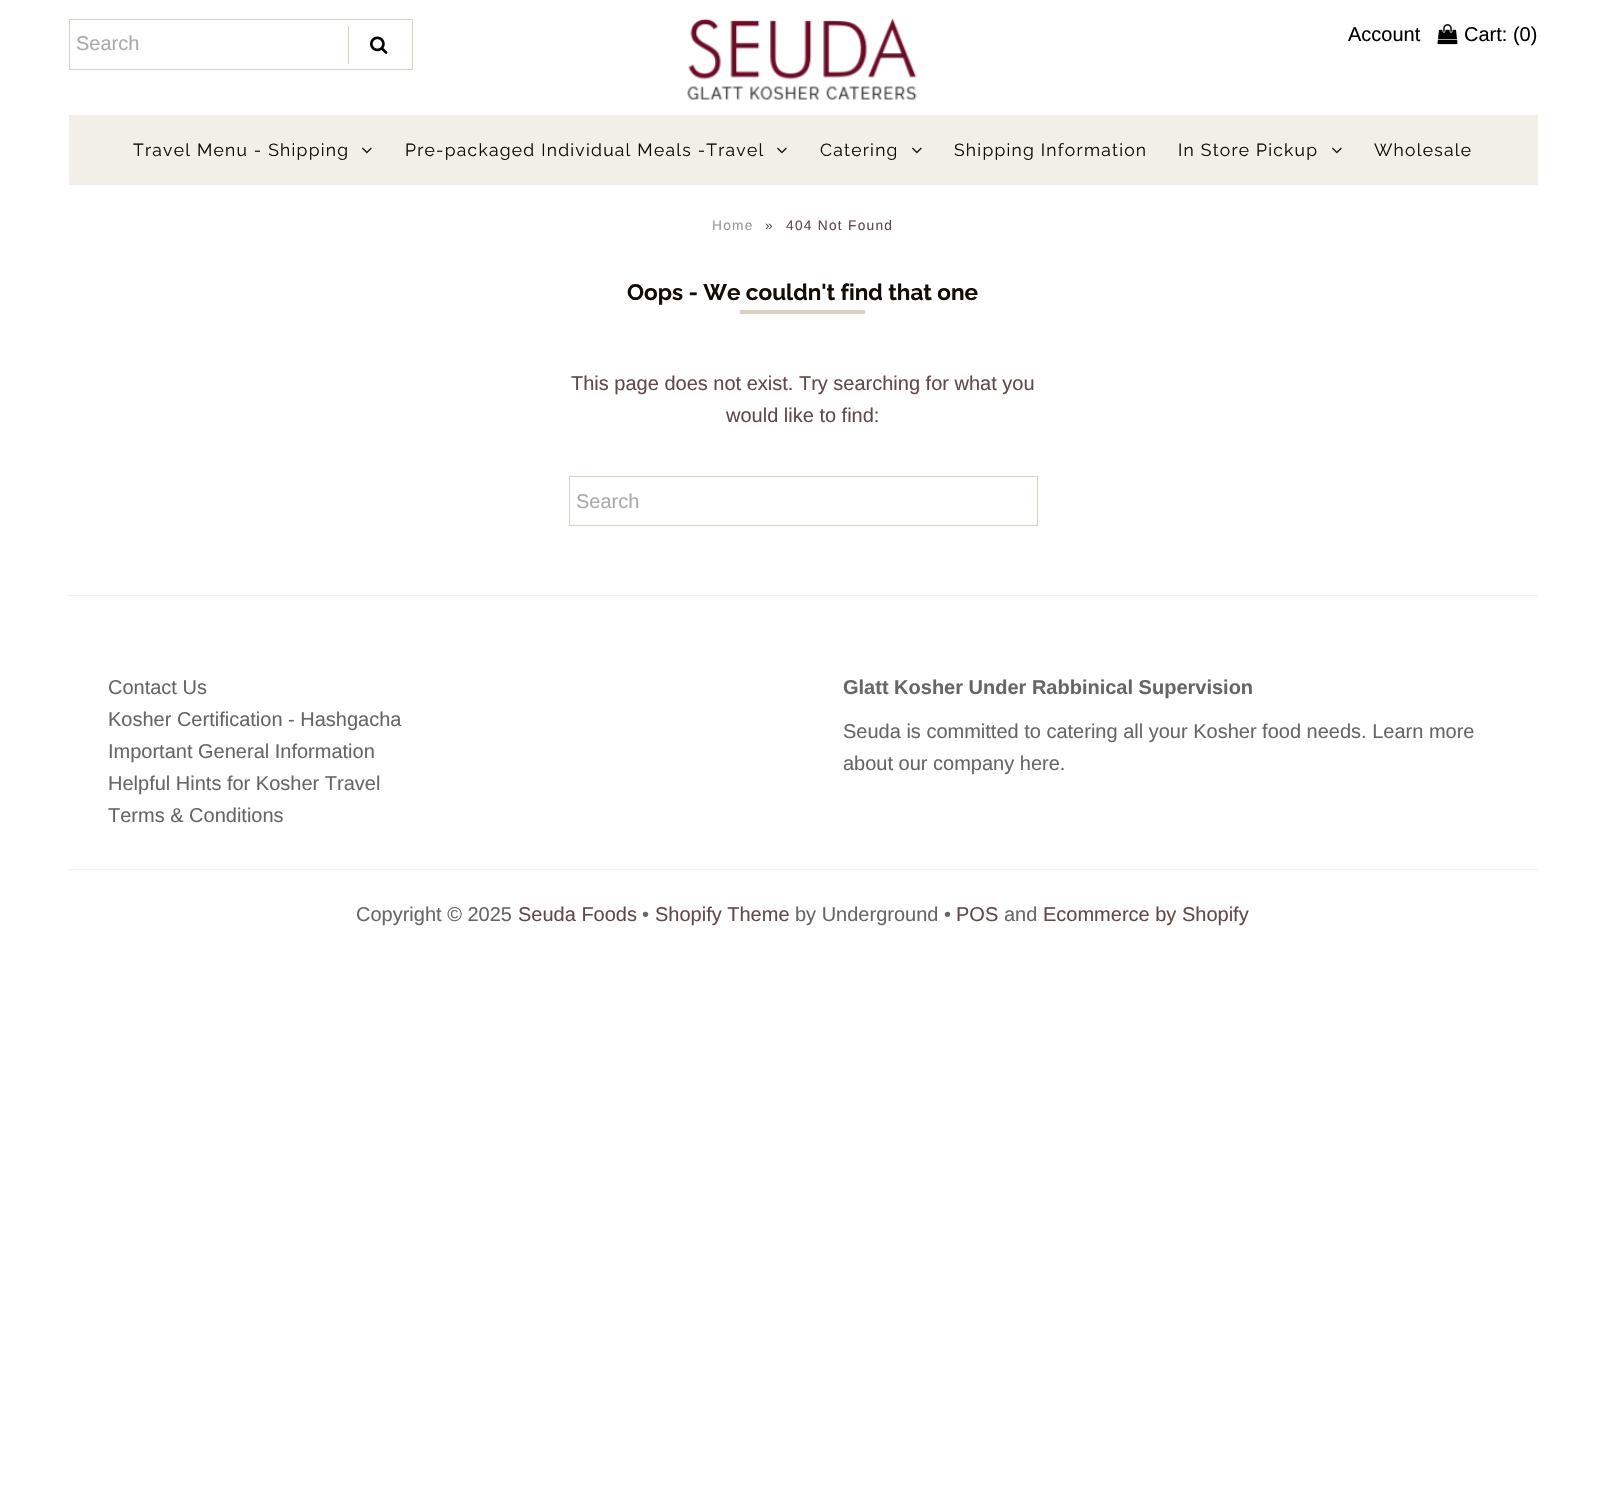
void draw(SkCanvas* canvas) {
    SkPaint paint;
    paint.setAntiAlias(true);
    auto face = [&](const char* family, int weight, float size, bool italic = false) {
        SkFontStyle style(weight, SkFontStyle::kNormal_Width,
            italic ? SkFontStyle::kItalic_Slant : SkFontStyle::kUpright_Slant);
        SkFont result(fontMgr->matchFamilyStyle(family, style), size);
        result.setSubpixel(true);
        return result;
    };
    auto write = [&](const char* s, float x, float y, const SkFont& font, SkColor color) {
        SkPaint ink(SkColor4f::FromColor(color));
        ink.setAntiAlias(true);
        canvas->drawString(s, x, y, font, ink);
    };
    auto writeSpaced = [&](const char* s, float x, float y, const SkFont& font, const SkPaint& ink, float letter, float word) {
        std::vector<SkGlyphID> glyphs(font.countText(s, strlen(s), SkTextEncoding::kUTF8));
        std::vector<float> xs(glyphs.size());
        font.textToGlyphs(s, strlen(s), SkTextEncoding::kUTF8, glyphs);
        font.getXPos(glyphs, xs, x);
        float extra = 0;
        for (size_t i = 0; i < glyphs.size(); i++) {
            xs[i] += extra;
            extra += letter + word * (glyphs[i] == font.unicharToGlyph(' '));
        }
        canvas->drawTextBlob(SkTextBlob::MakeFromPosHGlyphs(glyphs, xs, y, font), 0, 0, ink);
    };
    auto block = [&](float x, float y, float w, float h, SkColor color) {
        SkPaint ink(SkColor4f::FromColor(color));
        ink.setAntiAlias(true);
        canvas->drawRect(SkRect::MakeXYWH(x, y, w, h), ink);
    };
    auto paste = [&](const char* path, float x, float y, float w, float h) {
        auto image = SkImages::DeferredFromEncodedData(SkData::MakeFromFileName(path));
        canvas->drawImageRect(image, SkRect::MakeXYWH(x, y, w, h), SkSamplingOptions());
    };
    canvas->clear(SK_ColorWHITE);
    paint.setStyle(SkPaint::kStroke_Style);
    paint.setStrokeWidth(1);
    paint.setColor(SkColorSetRGB(216, 210, 196));
    canvas->drawRect(SkRect::MakeXYWH(69.5f, 19.5f, 343, 50), paint);
    auto kFont1 = face("Liberation Sans", 400, 20);
    write("Search", 76, 50, kFont1, SkColorSetRGB(170, 170, 170));
    block(348, 26, 1, 38, SkColorSetRGB(216, 210, 196));
    paste("pic1.png", 370, 36, 18, 18);
    paste("pic2.png", 687, 18, 230, 82);
    write("Account", 1348, 41, kFont1, SK_ColorBLACK);
    paste("pic3.png", 1437, 24, 21, 21);
    write("Cart: (0)", 1464, 41, kFont1, SK_ColorBLACK);
    block(69, 115, 1469, 70, SkColorSetRGB(242, 239, 232));
    auto kFont2 = face("Raleway", 400, 17.5f);
    paint.setStyle(SkPaint::kFill_Style);
    paint.setColor(SkColorSetRGB(20, 13, 5));
    writeSpaced("Travel Menu - Shipping", 133, 156, kFont2, paint, 1.25f, 0);
    paste("pic4.png", 362, 147, 10, 7);
    writeSpaced("Pre-packaged Individual Meals -Travel", 405, 156, kFont2, paint, 1.25f, 0);
    paste("pic4.png", 777, 147, 10, 7);
    writeSpaced("Catering", 820, 156, kFont2, paint, 1.25f, 0);
    paste("pic4.png", 912, 147, 10, 7);
    writeSpaced("Shipping Information", 954, 156, kFont2, paint, 1.25f, 0);
    writeSpaced("In Store Pickup", 1178, 156, kFont2, paint, 1.25f, 0);
    paste("pic4.png", 1332, 147, 10, 7);
    writeSpaced("Wholesale", 1374, 156, kFont2, paint, 1.25f, 0);
    auto kFont3 = face("Liberation Sans", 400, 13.75f);
    paint.setColor(SkColorSetRGB(153, 153, 153));
    writeSpaced("Home", 712, 230, kFont3, paint, 1.25f, 0);
    paint.setColor(SkColorSetRGB(98, 73, 73));
    writeSpaced("»", 765, 230, kFont3, paint, 1.25f, 0);
    writeSpaced("404 Not Found", 786, 230, kFont3, paint, 1.25f, 0);
    auto kFont4 = face("Raleway", 700, 22.5f);
    write("Oops - We couldn't find that one", 627, 300, kFont4, SkColorSetRGB(20, 13, 5));
    block(740, 310, 125, 4, SkColorSetRGB(216, 210, 196));
    write("This page does not exist. Try searching for what you", 571, 390, kFont1, SkColorSetRGB(98, 73, 73));
    write("would like to find:", 726, 422, kFont1, SkColorSetRGB(98, 73, 73));
    paint.setStyle(SkPaint::kStroke_Style);
    paint.setColor(SkColorSetRGB(216, 210, 196));
    canvas->drawRect(SkRect::MakeXYWH(569.5f, 476.5f, 468, 49), paint);
    write("Search", 576, 508, kFont1, SkColorSetRGB(170, 170, 170));
    block(69, 595, 1469, 1, SkColorSetRGB(240, 240, 240));
    block(69, 869, 1469, 1, SkColorSetRGB(240, 240, 240));
    write("Contact Us", 108, 694, kFont1, SkColorSetRGB(102, 102, 102));
    write("Kosher Certification - Hashgacha", 108, 726, kFont1, SkColorSetRGB(102, 102, 102));
    write("Important General Information", 108, 758, kFont1, SkColorSetRGB(102, 102, 102));
    write("Helpful Hints for Kosher Travel", 108, 790, kFont1, SkColorSetRGB(102, 102, 102));
    write("Terms & Conditions", 108, 822, kFont1, SkColorSetRGB(102, 102, 102));
    auto kFont5 = face("Liberation Sans", 700, 20);
    write("Glatt Kosher Under Rabbinical Supervision", 843, 694, kFont5, SkColorSetRGB(102, 102, 102));
    write("Seuda is committed to catering all your Kosher food needs. Learn more", 843, 738, kFont1, SkColorSetRGB(102, 102, 102));
    write("about our company here.", 843, 770, kFont1, SkColorSetRGB(102, 102, 102));
    write("Copyright © 2025", 356, 921, kFont1, SkColorSetRGB(102, 102, 102));
    write("Seuda Foods", 518, 921, kFont1, SkColorSetRGB(98, 73, 73));
    write("•", 642, 921, kFont1, SkColorSetRGB(102, 102, 102));
    write("Shopify Theme", 655, 921, kFont1, SkColorSetRGB(98, 73, 73));
    write("by Underground •", 795, 921, kFont1, SkColorSetRGB(102, 102, 102));
    write("POS", 956, 921, kFont1, SkColorSetRGB(98, 73, 73));
    write("and", 1004, 921, kFont1, SkColorSetRGB(102, 102, 102));
    write("Ecommerce by Shopify", 1043, 921, kFont1, SkColorSetRGB(98, 73, 73));
}
